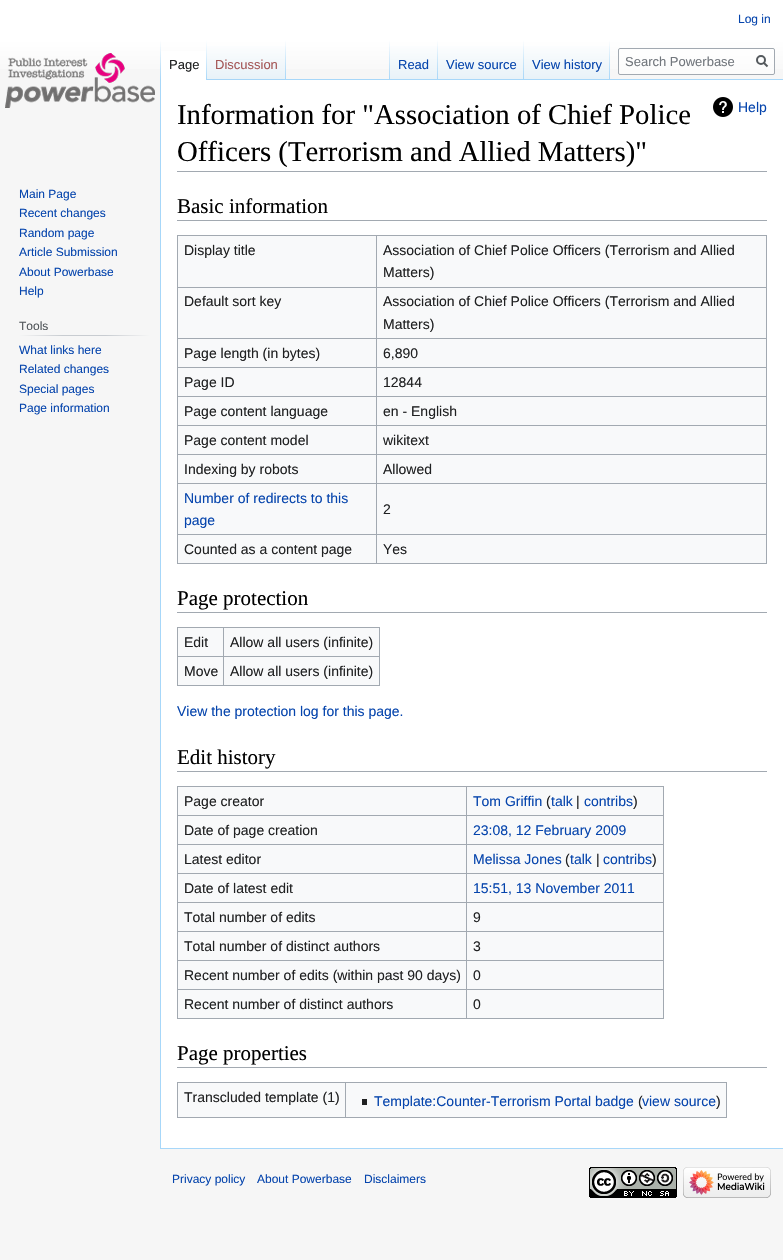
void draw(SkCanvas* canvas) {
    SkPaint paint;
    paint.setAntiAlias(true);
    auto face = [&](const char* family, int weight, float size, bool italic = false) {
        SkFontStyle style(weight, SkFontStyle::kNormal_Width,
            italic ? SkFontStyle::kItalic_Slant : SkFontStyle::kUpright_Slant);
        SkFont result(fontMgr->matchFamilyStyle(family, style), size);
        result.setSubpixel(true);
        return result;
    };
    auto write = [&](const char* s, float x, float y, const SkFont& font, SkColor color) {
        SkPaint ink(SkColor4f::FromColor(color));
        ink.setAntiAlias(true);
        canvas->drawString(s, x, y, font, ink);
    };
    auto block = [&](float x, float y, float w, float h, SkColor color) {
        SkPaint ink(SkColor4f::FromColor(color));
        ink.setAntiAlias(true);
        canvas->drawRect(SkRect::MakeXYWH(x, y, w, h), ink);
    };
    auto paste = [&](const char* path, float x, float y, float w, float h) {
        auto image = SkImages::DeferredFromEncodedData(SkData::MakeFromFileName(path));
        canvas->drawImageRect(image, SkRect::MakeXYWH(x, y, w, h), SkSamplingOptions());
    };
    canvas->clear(SkColorSetRGB(246, 246, 246));
    {
        const SkColor colors[] = {SK_ColorWHITE, SkColorSetRGB(246, 246, 246)};
        const float stops[] = {0.5f, 1};
        const SkPoint ends[] = {{392, 0}, {392, 80}};
        paint.setShader(SkGradientShader::MakeLinear(ends, colors, stops, 2, SkTileMode::kClamp));
        paint.setAlpha(255);
    }
    canvas->drawRect(SkRect::MakeXYWH(0, 0, 783, 69), paint);
    auto kFont1 = face("Liberation Sans", 400, 12);
    write("Log in", 738, 23, kFont1, SkColorSetRGB(6, 69, 173));
    block(160, 1148, 623, 1, SkColorSetRGB(167, 215, 249));
    block(160, 79, 1, 1070, SkColorSetRGB(167, 215, 249));
    {
        const SkColor colors[] = {SkColorSetARGB(0, 167, 215, 249), SkColorSetRGB(167, 215, 249)};
        const float stops[] = {0, 1};
        const SkPoint ends[] = {{161, 40}, {161, 80}};
        paint.setShader(SkGradientShader::MakeLinear(ends, colors, stops, 2, SkTileMode::kClamp));
        paint.setAlpha(255);
    }
    canvas->drawRect(SkRect::MakeXYWH(160, 40, 1, 40), paint);
    block(161, 51, 45, 29, SK_ColorWHITE);
    {
        const SkColor colors[] = {SK_ColorWHITE, SkColorSetRGB(167, 215, 249)};
        const float stops[] = {0, 1};
        const SkPoint ends[] = {{207, 40}, {207, 80}};
        paint.setShader(SkGradientShader::MakeLinear(ends, colors, stops, 2, SkTileMode::kClamp));
        paint.setAlpha(255);
    }
    canvas->drawRect(SkRect::MakeXYWH(206, 40, 1, 40), paint);
    auto kFont2 = face("Liberation Sans", 400, 13);
    write("Page", 169, 69, kFont2, SkColorSetRGB(32, 33, 34));
    {
        const SkColor colors[] = {SkColorSetRGB(119, 193, 246), SkColorSetRGB(232, 242, 248), SK_ColorWHITE};
        const float stops[] = {0, 0.03f, 1};
        const SkPoint ends[] = {{247, 80}, {247, 40}};
        paint.setShader(SkGradientShader::MakeLinear(ends, colors, stops, 3, SkTileMode::kClamp));
        paint.setAlpha(255);
    }
    canvas->drawRect(SkRect::MakeXYWH(207, 46, 79, 34), paint);
    {
        const SkColor colors[] = {SkColorSetARGB(0, 167, 215, 249), SkColorSetRGB(167, 215, 249)};
        const float stops[] = {0, 1};
        const SkPoint ends[] = {{286, 40}, {286, 80}};
        paint.setShader(SkGradientShader::MakeLinear(ends, colors, stops, 2, SkTileMode::kClamp));
        paint.setAlpha(255);
    }
    canvas->drawRect(SkRect::MakeXYWH(285, 40, 1, 40), paint);
    write("Discussion", 215, 69, kFont2, SkColorSetRGB(165, 88, 88));
    block(286, 79, 497, 1, SkColorSetRGB(167, 215, 249));
    {
        const SkColor colors[] = {SkColorSetARGB(0, 167, 215, 249), SkColorSetRGB(167, 215, 249)};
        const float stops[] = {0, 1};
        const SkPoint ends[] = {{390, 40}, {390, 80}};
        paint.setShader(SkGradientShader::MakeLinear(ends, colors, stops, 2, SkTileMode::kClamp));
        paint.setAlpha(255);
    }
    canvas->drawRect(SkRect::MakeXYWH(389, 40, 1, 40), paint);
    {
        const SkColor colors[] = {SkColorSetRGB(119, 193, 246), SkColorSetRGB(232, 242, 248), SK_ColorWHITE};
        const float stops[] = {0, 0.03f, 1};
        const SkPoint ends[] = {{414, 80}, {414, 40}};
        paint.setShader(SkGradientShader::MakeLinear(ends, colors, stops, 3, SkTileMode::kClamp));
        paint.setAlpha(255);
    }
    canvas->drawRect(SkRect::MakeXYWH(390, 46, 48, 33), paint);
    {
        const SkColor colors[] = {SkColorSetARGB(0, 167, 215, 249), SkColorSetRGB(167, 215, 249)};
        const float stops[] = {0, 1};
        const SkPoint ends[] = {{438, 40}, {438, 80}};
        paint.setShader(SkGradientShader::MakeLinear(ends, colors, stops, 2, SkTileMode::kClamp));
        paint.setAlpha(255);
    }
    canvas->drawRect(SkRect::MakeXYWH(437, 40, 1, 40), paint);
    write("Read", 398, 69, kFont2, SkColorSetRGB(6, 69, 173));
    {
        const SkColor colors[] = {SkColorSetRGB(119, 193, 246), SkColorSetRGB(232, 242, 248), SK_ColorWHITE};
        const float stops[] = {0, 0.03f, 1};
        const SkPoint ends[] = {{481, 80}, {481, 40}};
        paint.setShader(SkGradientShader::MakeLinear(ends, colors, stops, 3, SkTileMode::kClamp));
        paint.setAlpha(255);
    }
    canvas->drawRect(SkRect::MakeXYWH(438, 46, 86, 33), paint);
    {
        const SkColor colors[] = {SkColorSetARGB(0, 167, 215, 249), SkColorSetRGB(167, 215, 249)};
        const float stops[] = {0, 1};
        const SkPoint ends[] = {{524, 40}, {524, 80}};
        paint.setShader(SkGradientShader::MakeLinear(ends, colors, stops, 2, SkTileMode::kClamp));
        paint.setAlpha(255);
    }
    canvas->drawRect(SkRect::MakeXYWH(523, 40, 1, 40), paint);
    write("View source", 446, 69, kFont2, SkColorSetRGB(6, 69, 173));
    {
        const SkColor colors[] = {SkColorSetRGB(119, 193, 246), SkColorSetRGB(232, 242, 248), SK_ColorWHITE};
        const float stops[] = {0, 0.03f, 1};
        const SkPoint ends[] = {{567, 80}, {567, 40}};
        paint.setShader(SkGradientShader::MakeLinear(ends, colors, stops, 3, SkTileMode::kClamp));
        paint.setAlpha(255);
    }
    canvas->drawRect(SkRect::MakeXYWH(524, 46, 86, 33), paint);
    {
        const SkColor colors[] = {SkColorSetARGB(0, 167, 215, 249), SkColorSetRGB(167, 215, 249)};
        const float stops[] = {0, 1};
        const SkPoint ends[] = {{610, 40}, {610, 80}};
        paint.setShader(SkGradientShader::MakeLinear(ends, colors, stops, 2, SkTileMode::kClamp));
        paint.setAlpha(255);
    }
    canvas->drawRect(SkRect::MakeXYWH(609, 40, 1, 40), paint);
    write("View history", 532, 69, kFont2, SkColorSetRGB(6, 69, 173));
    paint.setShader(nullptr);
    paint.setColor(SkColorSetARGB(128, 255, 255, 255));
    canvas->drawRoundRect(SkRect::MakeXYWH(618.5f, 48.5f, 156, 26), 1.5f, 1.5f, paint);
    paint.setStyle(SkPaint::kStroke_Style);
    paint.setStrokeWidth(1);
    paint.setColor(SkColorSetRGB(162, 169, 177));
    canvas->drawRoundRect(SkRect::MakeXYWH(618.5f, 48.5f, 156, 26), 1.5f, 1.5f, paint);
    write("Search Powerbase", 625, 66, kFont2, SkColorSetRGB(114, 119, 125));
    paint.setStrokeWidth(2);
    paint.setColor(SkColorSetRGB(84, 89, 93));
    canvas->drawPath(SkPathBuilder().moveTo(767.5f, 66.5f).lineTo(763.5f, 62.5f).detach(), paint);
    canvas->drawCircle(761, 60, 4, paint);
    paste("pic1.png", 5, 53, 150, 55);
    write("Main Page", 19, 198, kFont1, SkColorSetRGB(6, 69, 173));
    write("Recent changes", 19, 217, kFont1, SkColorSetRGB(6, 69, 173));
    write("Random page", 19, 237, kFont1, SkColorSetRGB(6, 69, 173));
    write("Article Submission", 19, 256, kFont1, SkColorSetRGB(6, 69, 173));
    write("About Powerbase", 19, 276, kFont1, SkColorSetRGB(6, 69, 173));
    write("Help", 19, 295, kFont1, SkColorSetRGB(6, 69, 173));
    paint.setStyle(SkPaint::kFill_Style);
    {
        const SkColor colors[] = {SkColorSetRGB(246, 246, 246), SkColorSetRGB(200, 204, 209), SkColorSetRGB(200, 204, 209), SkColorSetRGB(246, 246, 246)};
        const float stops[] = {0, 0.33f, 0.66f, 1};
        const SkPoint ends[] = {{19, 336}, {150, 336}};
        paint.setShader(SkGradientShader::MakeLinear(ends, colors, stops, 4, SkTileMode::kClamp));
        paint.setAlpha(255);
    }
    canvas->drawRect(SkRect::MakeXYWH(19, 335, 131, 1), paint);
    write("Tools", 19, 330, kFont1, SkColorSetRGB(84, 89, 93));
    write("What links here", 19, 354, kFont1, SkColorSetRGB(6, 69, 173));
    write("Related changes", 19, 373, kFont1, SkColorSetRGB(6, 69, 173));
    write("Special pages", 19, 393, kFont1, SkColorSetRGB(6, 69, 173));
    write("Page information", 19, 412, kFont1, SkColorSetRGB(6, 69, 173));
    block(161, 80, 622, 1068, SK_ColorWHITE);
    block(177, 171, 590, 1, SkColorSetRGB(162, 169, 177));
    auto kFont3 = face("Liberation Serif", 400, 28.75f);
    write("Information for \"Association of Chief Police", 177, 124, kFont3, SK_ColorBLACK);
    write("Officers (Terrorism and Allied Matters)\"", 177, 161, kFont3, SK_ColorBLACK);
    paste("pic2.png", 713, 97, 20, 20);
    auto kFont4 = face("Liberation Sans", 400, 14);
    write("Help", 738, 112, kFont4, SkColorSetRGB(6, 69, 173));
    block(177, 220, 590, 1, SkColorSetRGB(162, 169, 177));
    auto kFont5 = face("Liberation Serif", 400, 21);
    write("Basic information", 177, 213, kFont5, SK_ColorBLACK);
    block(178, 236, 588, 327, SkColorSetRGB(248, 249, 250));
    block(177, 235, 590, 1, SkColorSetRGB(162, 169, 177));
    block(766, 235, 1, 329, SkColorSetRGB(162, 169, 177));
    block(177, 563, 590, 1, SkColorSetRGB(162, 169, 177));
    block(177, 235, 1, 329, SkColorSetRGB(162, 169, 177));
    write("Display title", 184, 255, kFont4, SkColorSetRGB(32, 33, 34));
    block(376, 287, 391, 1, SkColorSetRGB(162, 169, 177));
    block(376, 338, 391, 1, SkColorSetRGB(162, 169, 177));
    block(376, 367, 391, 1, SkColorSetRGB(162, 169, 177));
    block(376, 396, 391, 1, SkColorSetRGB(162, 169, 177));
    block(376, 425, 391, 1, SkColorSetRGB(162, 169, 177));
    block(376, 454, 391, 1, SkColorSetRGB(162, 169, 177));
    block(376, 483, 391, 1, SkColorSetRGB(162, 169, 177));
    block(376, 534, 391, 1, SkColorSetRGB(162, 169, 177));
    block(376, 534, 1, 30, SkColorSetRGB(162, 169, 177));
    block(177, 534, 200, 1, SkColorSetRGB(162, 169, 177));
    block(376, 483, 1, 52, SkColorSetRGB(162, 169, 177));
    block(177, 483, 200, 1, SkColorSetRGB(162, 169, 177));
    block(376, 454, 1, 30, SkColorSetRGB(162, 169, 177));
    block(177, 454, 200, 1, SkColorSetRGB(162, 169, 177));
    block(376, 425, 1, 30, SkColorSetRGB(162, 169, 177));
    block(177, 425, 200, 1, SkColorSetRGB(162, 169, 177));
    block(376, 396, 1, 30, SkColorSetRGB(162, 169, 177));
    block(177, 396, 200, 1, SkColorSetRGB(162, 169, 177));
    block(376, 367, 1, 30, SkColorSetRGB(162, 169, 177));
    block(177, 367, 200, 1, SkColorSetRGB(162, 169, 177));
    block(376, 338, 1, 30, SkColorSetRGB(162, 169, 177));
    block(177, 338, 200, 1, SkColorSetRGB(162, 169, 177));
    block(376, 287, 1, 52, SkColorSetRGB(162, 169, 177));
    block(177, 287, 200, 1, SkColorSetRGB(162, 169, 177));
    block(376, 235, 1, 53, SkColorSetRGB(162, 169, 177));
    write("Association of Chief Police Officers (Terrorism and Allied", 383, 255, kFont4, SkColorSetRGB(32, 33, 34));
    write("Matters)", 383, 277, kFont4, SkColorSetRGB(32, 33, 34));
    write("Default sort key", 184, 306, kFont4, SkColorSetRGB(32, 33, 34));
    write("Association of Chief Police Officers (Terrorism and Allied", 383, 306, kFont4, SkColorSetRGB(32, 33, 34));
    write("Matters)", 383, 329, kFont4, SkColorSetRGB(32, 33, 34));
    write("Page length (in bytes)", 184, 358, kFont4, SkColorSetRGB(32, 33, 34));
    write("6,890", 383, 358, kFont4, SkColorSetRGB(32, 33, 34));
    write("Page ID", 184, 387, kFont4, SkColorSetRGB(32, 33, 34));
    write("12844", 383, 387, kFont4, SkColorSetRGB(32, 33, 34));
    write("Page content language", 184, 416, kFont4, SkColorSetRGB(32, 33, 34));
    write("en - English", 383, 416, kFont4, SkColorSetRGB(32, 33, 34));
    write("Page content model", 184, 445, kFont4, SkColorSetRGB(32, 33, 34));
    write("wikitext", 383, 445, kFont4, SkColorSetRGB(32, 33, 34));
    write("Indexing by robots", 184, 474, kFont4, SkColorSetRGB(32, 33, 34));
    write("Allowed", 383, 474, kFont4, SkColorSetRGB(32, 33, 34));
    write("Number of redirects to this", 184, 503, kFont4, SkColorSetRGB(6, 69, 173));
    write("page", 184, 525, kFont4, SkColorSetRGB(6, 69, 173));
    write("2", 383, 514, kFont4, SkColorSetRGB(32, 33, 34));
    write("Counted as a content page", 184, 554, kFont4, SkColorSetRGB(32, 33, 34));
    write("Yes", 383, 554, kFont4, SkColorSetRGB(32, 33, 34));
    block(177, 612, 590, 1, SkColorSetRGB(162, 169, 177));
    write("Page protection", 177, 605, kFont5, SK_ColorBLACK);
    block(178, 628, 201, 57, SkColorSetRGB(248, 249, 250));
    block(177, 627, 203, 1, SkColorSetRGB(162, 169, 177));
    block(379, 627, 1, 59, SkColorSetRGB(162, 169, 177));
    block(177, 685, 203, 1, SkColorSetRGB(162, 169, 177));
    block(177, 627, 1, 59, SkColorSetRGB(162, 169, 177));
    write("Edit", 184, 647, kFont4, SkColorSetRGB(32, 33, 34));
    block(223, 656, 157, 1, SkColorSetRGB(162, 169, 177));
    block(223, 656, 1, 30, SkColorSetRGB(162, 169, 177));
    block(177, 656, 47, 1, SkColorSetRGB(162, 169, 177));
    block(223, 627, 1, 30, SkColorSetRGB(162, 169, 177));
    write("Allow all users (infinite)", 230, 647, kFont4, SkColorSetRGB(32, 33, 34));
    write("Move", 184, 676, kFont4, SkColorSetRGB(32, 33, 34));
    write("Allow all users (infinite)", 230, 676, kFont4, SkColorSetRGB(32, 33, 34));
    write("View the protection log for this page.", 177, 716, kFont4, SkColorSetRGB(6, 69, 173));
    block(177, 771, 590, 1, SkColorSetRGB(162, 169, 177));
    write("Edit history", 177, 764, kFont5, SK_ColorBLACK);
    block(178, 787, 485, 231, SkColorSetRGB(248, 249, 250));
    block(177, 786, 487, 1, SkColorSetRGB(162, 169, 177));
    block(663, 786, 1, 233, SkColorSetRGB(162, 169, 177));
    block(177, 1018, 487, 1, SkColorSetRGB(162, 169, 177));
    block(177, 786, 1, 233, SkColorSetRGB(162, 169, 177));
    write("Page creator", 184, 806, kFont4, SkColorSetRGB(32, 33, 34));
    block(466, 815, 198, 1, SkColorSetRGB(162, 169, 177));
    block(466, 844, 198, 1, SkColorSetRGB(162, 169, 177));
    block(466, 873, 198, 1, SkColorSetRGB(162, 169, 177));
    block(466, 902, 198, 1, SkColorSetRGB(162, 169, 177));
    block(466, 931, 198, 1, SkColorSetRGB(162, 169, 177));
    block(466, 960, 198, 1, SkColorSetRGB(162, 169, 177));
    block(466, 989, 198, 1, SkColorSetRGB(162, 169, 177));
    block(466, 989, 1, 30, SkColorSetRGB(162, 169, 177));
    block(177, 989, 290, 1, SkColorSetRGB(162, 169, 177));
    block(466, 960, 1, 30, SkColorSetRGB(162, 169, 177));
    block(177, 960, 290, 1, SkColorSetRGB(162, 169, 177));
    block(466, 931, 1, 30, SkColorSetRGB(162, 169, 177));
    block(177, 931, 290, 1, SkColorSetRGB(162, 169, 177));
    block(466, 902, 1, 30, SkColorSetRGB(162, 169, 177));
    block(177, 902, 290, 1, SkColorSetRGB(162, 169, 177));
    block(466, 873, 1, 30, SkColorSetRGB(162, 169, 177));
    block(177, 873, 290, 1, SkColorSetRGB(162, 169, 177));
    block(466, 844, 1, 30, SkColorSetRGB(162, 169, 177));
    block(177, 844, 290, 1, SkColorSetRGB(162, 169, 177));
    block(466, 815, 1, 30, SkColorSetRGB(162, 169, 177));
    block(177, 815, 290, 1, SkColorSetRGB(162, 169, 177));
    block(466, 786, 1, 30, SkColorSetRGB(162, 169, 177));
    write("Tom Griffin", 473, 806, kFont4, SkColorSetRGB(6, 69, 173));
    write("(", 546, 806, kFont4, SkColorSetRGB(32, 33, 34));
    write("talk", 551, 806, kFont4, SkColorSetRGB(6, 69, 173));
    write("|", 576, 806, kFont4, SkColorSetRGB(32, 33, 34));
    write("contribs", 584, 806, kFont4, SkColorSetRGB(6, 69, 173));
    write(")", 633, 806, kFont4, SkColorSetRGB(32, 33, 34));
    write("Date of page creation", 184, 835, kFont4, SkColorSetRGB(32, 33, 34));
    write("23:08, 12 February 2009", 473, 835, kFont4, SkColorSetRGB(6, 69, 173));
    write("Latest editor", 184, 864, kFont4, SkColorSetRGB(32, 33, 34));
    write("Melissa Jones", 473, 864, kFont4, SkColorSetRGB(6, 69, 173));
    write("(", 565, 864, kFont4, SkColorSetRGB(32, 33, 34));
    write("talk", 570, 864, kFont4, SkColorSetRGB(6, 69, 173));
    write("|", 596, 864, kFont4, SkColorSetRGB(32, 33, 34));
    write("contribs", 603, 864, kFont4, SkColorSetRGB(6, 69, 173));
    write(")", 652, 864, kFont4, SkColorSetRGB(32, 33, 34));
    write("Date of latest edit", 184, 893, kFont4, SkColorSetRGB(32, 33, 34));
    write("15:51, 13 November 2011", 473, 893, kFont4, SkColorSetRGB(6, 69, 173));
    write("Total number of edits", 184, 922, kFont4, SkColorSetRGB(32, 33, 34));
    write("9", 473, 922, kFont4, SkColorSetRGB(32, 33, 34));
    write("Total number of distinct authors", 184, 951, kFont4, SkColorSetRGB(32, 33, 34));
    write("3", 473, 951, kFont4, SkColorSetRGB(32, 33, 34));
    write("Recent number of edits (within past 90 days)", 184, 980, kFont4, SkColorSetRGB(32, 33, 34));
    write("0", 473, 980, kFont4, SkColorSetRGB(32, 33, 34));
    write("Recent number of distinct authors", 184, 1009, kFont4, SkColorSetRGB(32, 33, 34));
    write("0", 473, 1009, kFont4, SkColorSetRGB(32, 33, 34));
    block(177, 1067, 590, 1, SkColorSetRGB(162, 169, 177));
    write("Page properties", 177, 1060, kFont5, SK_ColorBLACK);
    block(178, 1083, 548, 34, SkColorSetRGB(248, 249, 250));
    block(177, 1082, 550, 1, SkColorSetRGB(162, 169, 177));
    block(726, 1082, 1, 36, SkColorSetRGB(162, 169, 177));
    block(177, 1117, 550, 1, SkColorSetRGB(162, 169, 177));
    block(177, 1082, 1, 36, SkColorSetRGB(162, 169, 177));
    write("Transcluded template (1)", 184, 1102, kFont4, SkColorSetRGB(32, 33, 34));
    block(345, 1082, 1, 36, SkColorSetRGB(162, 169, 177));
    block(362, 1099, 5, 6, SkColorSetRGB(32, 33, 34));
    write("Template:Counter-Terrorism Portal badge", 374, 1106, kFont4, SkColorSetRGB(6, 69, 173));
    write("(", 638, 1106, kFont4, SkColorSetRGB(32, 33, 34));
    write("view source", 642, 1106, kFont4, SkColorSetRGB(6, 69, 173));
    write(")", 716, 1106, kFont4, SkColorSetRGB(32, 33, 34));
    write("Privacy policy", 172, 1183, kFont1, SkColorSetRGB(6, 69, 173));
    write("About Powerbase", 257, 1183, kFont1, SkColorSetRGB(6, 69, 173));
    write("Disclaimers", 364, 1183, kFont1, SkColorSetRGB(6, 69, 173));
    paste("pic3.png", 589, 1167, 88, 31);
    paste("pic4.png", 683, 1167, 88, 31);
}
